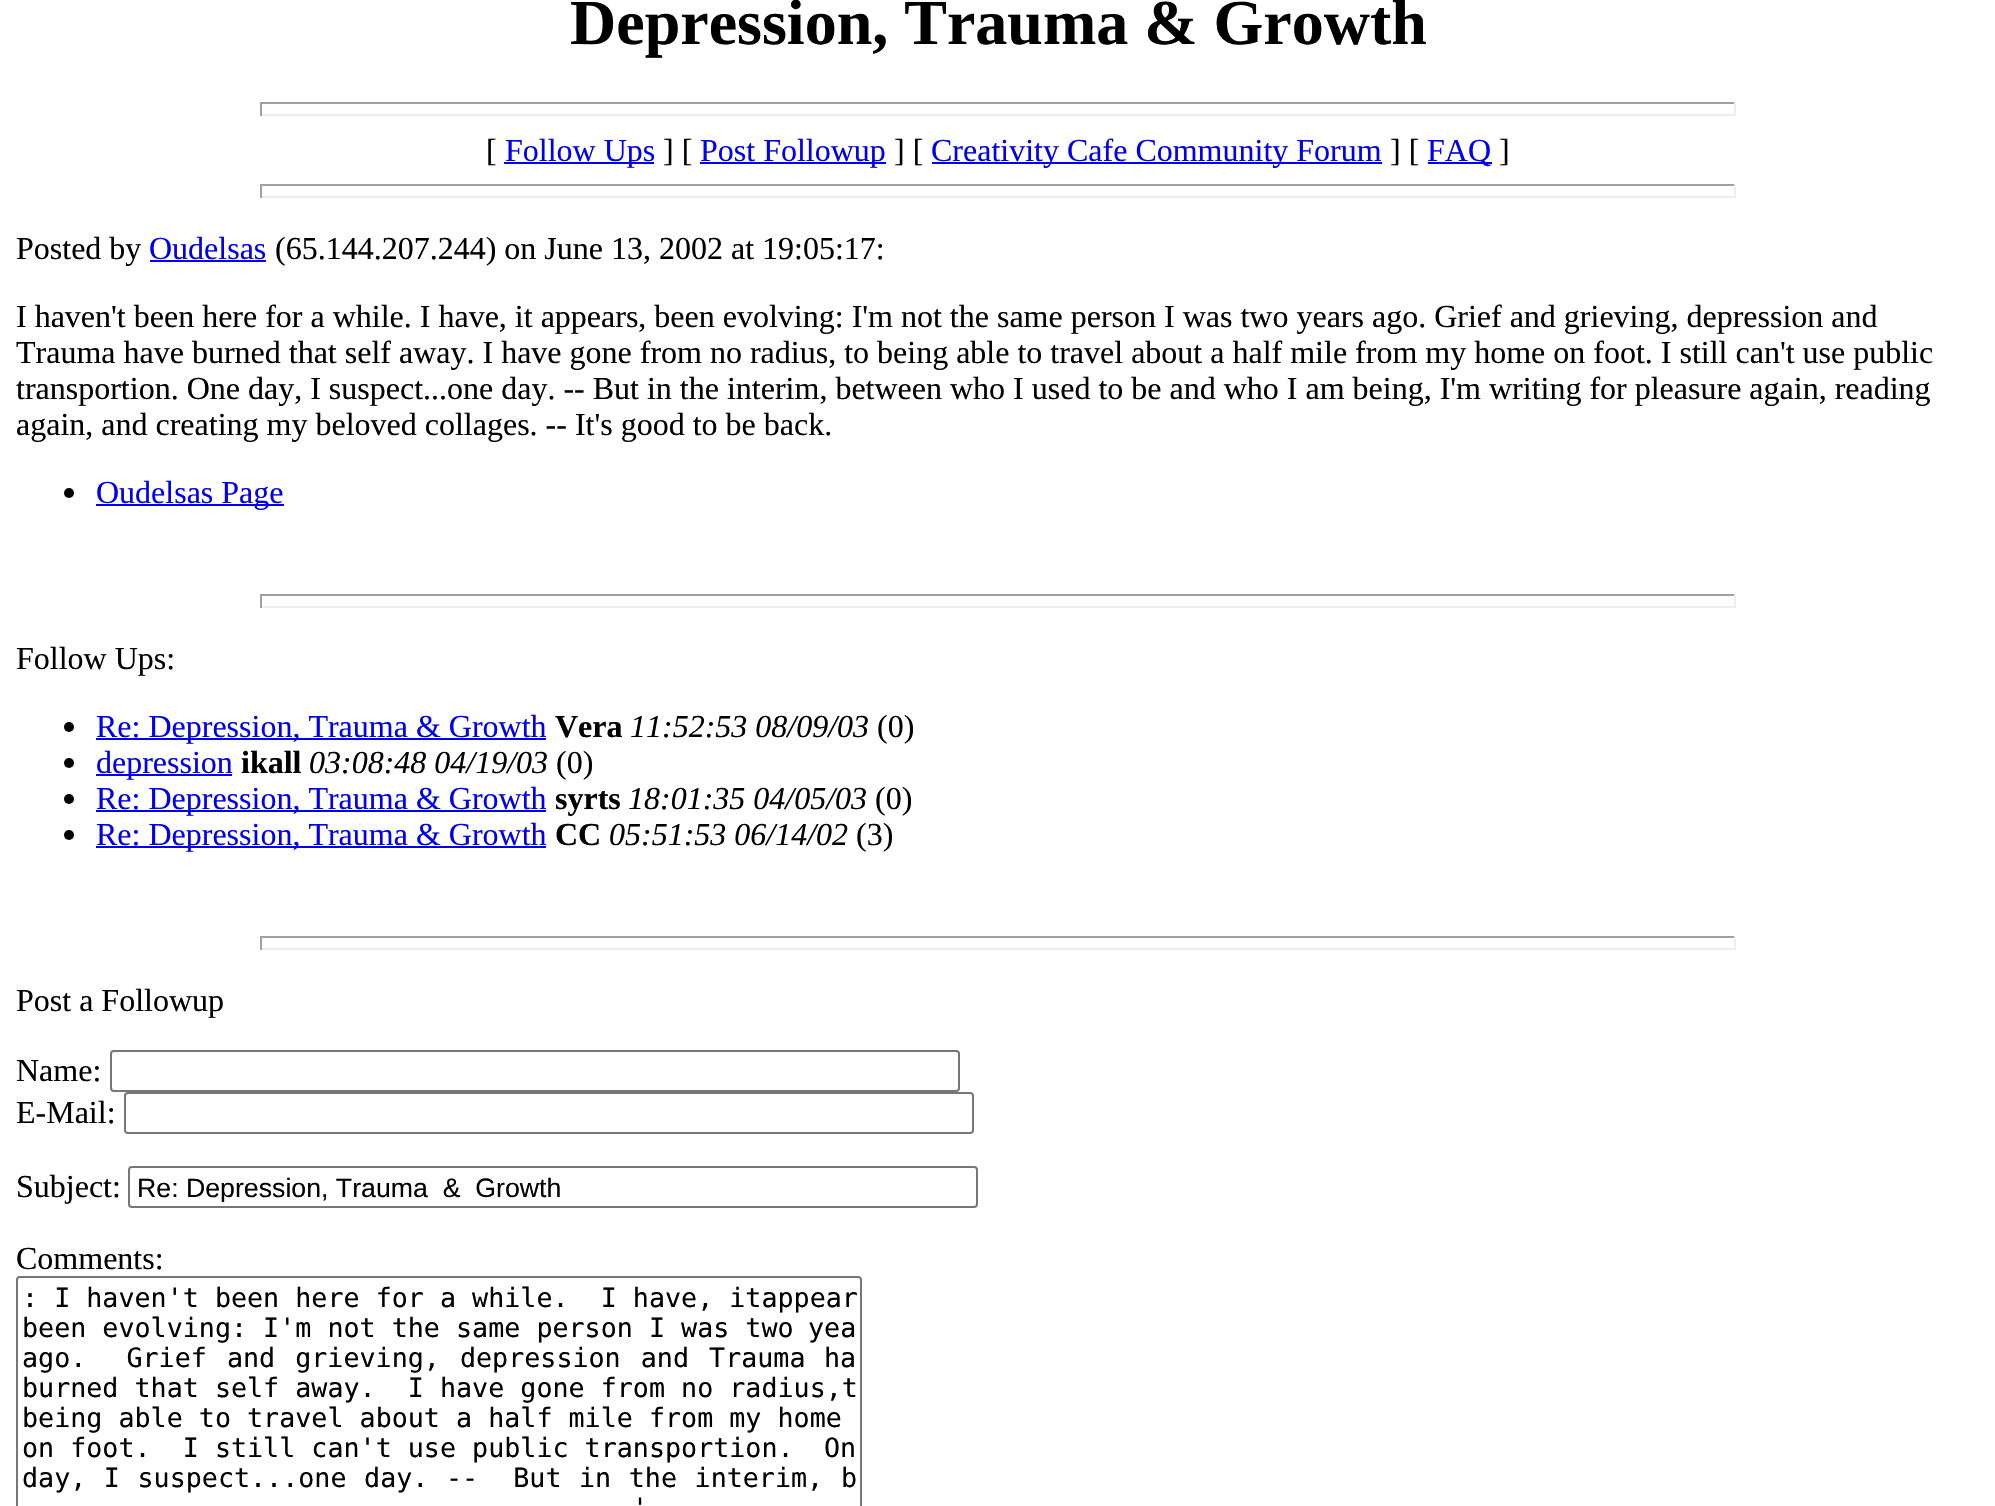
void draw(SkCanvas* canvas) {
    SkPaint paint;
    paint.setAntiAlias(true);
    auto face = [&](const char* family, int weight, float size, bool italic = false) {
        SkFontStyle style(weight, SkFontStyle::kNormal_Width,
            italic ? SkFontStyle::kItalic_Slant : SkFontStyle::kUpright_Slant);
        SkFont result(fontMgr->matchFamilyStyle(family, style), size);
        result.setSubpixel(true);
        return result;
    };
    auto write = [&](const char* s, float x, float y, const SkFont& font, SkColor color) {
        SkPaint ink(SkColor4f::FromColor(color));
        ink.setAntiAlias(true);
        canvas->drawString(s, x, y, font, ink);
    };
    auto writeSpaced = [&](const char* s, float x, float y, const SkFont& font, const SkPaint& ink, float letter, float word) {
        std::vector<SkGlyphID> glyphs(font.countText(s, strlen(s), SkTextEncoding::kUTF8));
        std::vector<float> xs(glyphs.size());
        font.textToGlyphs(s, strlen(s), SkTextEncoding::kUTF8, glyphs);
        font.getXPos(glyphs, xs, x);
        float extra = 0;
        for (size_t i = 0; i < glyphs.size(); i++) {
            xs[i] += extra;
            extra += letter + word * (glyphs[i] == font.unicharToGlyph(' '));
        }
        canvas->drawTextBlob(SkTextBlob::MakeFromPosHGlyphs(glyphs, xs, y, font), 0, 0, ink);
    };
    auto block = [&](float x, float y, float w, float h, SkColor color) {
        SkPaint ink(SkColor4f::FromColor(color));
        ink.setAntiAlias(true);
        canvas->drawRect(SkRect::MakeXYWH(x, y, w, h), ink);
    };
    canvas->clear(SK_ColorWHITE);
    auto kFont1 = face("Liberation Serif", 700, 64);
    write("Depression, Trauma & Growth", 570, 44, kFont1, SK_ColorBLACK);
    block(260, 102, 1476, 2, SkColorSetRGB(159, 159, 159));
    block(1734, 102, 2, 14, SkColorSetRGB(238, 238, 238));
    block(260, 114, 1476, 2, SkColorSetRGB(238, 238, 238));
    block(260, 102, 2, 14, SkColorSetRGB(159, 159, 159));
    auto kFont2 = face("Liberation Serif", 400, 32);
    write("[", 486, 161, kFont2, SK_ColorBLACK);
    block(504, 162, 150, 2, SkColorSetRGB(0, 0, 238));
    write("Follow Ups", 505, 161, kFont2, SkColorSetRGB(0, 0, 238));
    write("] [", 663, 161, kFont2, SK_ColorBLACK);
    block(700, 162, 186, 2, SkColorSetRGB(0, 0, 238));
    write("Post Followup", 700, 161, kFont2, SkColorSetRGB(0, 0, 238));
    write("] [", 894, 161, kFont2, SK_ColorBLACK);
    block(932, 162, 450, 2, SkColorSetRGB(0, 0, 238));
    write("Creativity Cafe Community Forum", 931, 161, kFont2, SkColorSetRGB(0, 0, 238));
    write("] [", 1390, 161, kFont2, SK_ColorBLACK);
    block(1428, 162, 64, 2, SkColorSetRGB(0, 0, 238));
    write("FAQ", 1427, 161, kFont2, SkColorSetRGB(0, 0, 238));
    write("]", 1499, 161, kFont2, SK_ColorBLACK);
    block(260, 184, 1476, 2, SkColorSetRGB(159, 159, 159));
    block(1734, 184, 2, 14, SkColorSetRGB(238, 238, 238));
    block(260, 196, 1476, 2, SkColorSetRGB(238, 238, 238));
    block(260, 184, 2, 14, SkColorSetRGB(159, 159, 159));
    write("Posted by", 16, 259, kFont2, SK_ColorBLACK);
    write("Oudelsas", 149, 259, kFont2, SkColorSetRGB(0, 0, 238));
    block(150, 260, 116, 2, SkColorSetRGB(0, 0, 238));
    write("(65.144.207.244) on June 13, 2002 at 19:05:17:", 275, 259, kFont2, SK_ColorBLACK);
    write("I haven't been here for a while. I have, it appears, been evolving: I'm not the same person I was two years ago. Grief and grieving, depression and", 16, 327, kFont2, SK_ColorBLACK);
    write("Trauma have burned that self away. I have gone from no radius, to being able to travel about a half mile from my home on foot. I still can't use public", 16, 363, kFont2, SK_ColorBLACK);
    write("transportion. One day, I suspect...one day. -- But in the interim, between who I used to be and who I am being, I'm writing for pleasure again, reading", 16, 399, kFont2, SK_ColorBLACK);
    write("again, and creating my beloved collages. -- It's good to be back.", 16, 435, kFont2, SK_ColorBLACK);
    paint.setColor(SK_ColorBLACK);
    canvas->drawCircle(69, 493, 5, paint);
    block(96, 504, 188, 2, SkColorSetRGB(0, 0, 238));
    write("Oudelsas Page", 96, 503, kFont2, SkColorSetRGB(0, 0, 238));
    block(260, 594, 1476, 2, SkColorSetRGB(159, 159, 159));
    block(1734, 594, 2, 14, SkColorSetRGB(238, 238, 238));
    block(260, 606, 1476, 2, SkColorSetRGB(238, 238, 238));
    block(260, 594, 2, 14, SkColorSetRGB(159, 159, 159));
    write("Follow Ups:", 16, 669, kFont2, SK_ColorBLACK);
    canvas->drawCircle(69, 727, 5, paint);
    block(96, 738, 450, 2, SkColorSetRGB(0, 0, 238));
    write("Re: Depression, Trauma & Growth", 96, 737, kFont2, SkColorSetRGB(0, 0, 238));
    auto kFont3 = face("Liberation Serif", 700, 32);
    write("Vera", 555, 737, kFont3, SK_ColorBLACK);
    auto kFont4 = face("Liberation Serif", 400, 32, true);
    write("11:52:53 08/09/03", 630, 737, kFont4, SK_ColorBLACK);
    write("(0)", 877, 737, kFont2, SK_ColorBLACK);
    canvas->drawCircle(69, 763, 5, paint);
    block(96, 774, 136, 2, SkColorSetRGB(0, 0, 238));
    write("depression", 96, 773, kFont2, SkColorSetRGB(0, 0, 238));
    write("ikall", 241, 773, kFont3, SK_ColorBLACK);
    write("03:08:48 04/19/03", 309, 773, kFont4, SK_ColorBLACK);
    write("(0)", 556, 773, kFont2, SK_ColorBLACK);
    canvas->drawCircle(69, 799, 5, paint);
    block(96, 810, 450, 2, SkColorSetRGB(0, 0, 238));
    write("Re: Depression, Trauma & Growth", 96, 809, kFont2, SkColorSetRGB(0, 0, 238));
    write("syrts", 555, 809, kFont3, SK_ColorBLACK);
    write("18:01:35 04/05/03", 628, 809, kFont4, SK_ColorBLACK);
    write("(0)", 875, 809, kFont2, SK_ColorBLACK);
    canvas->drawCircle(69, 835, 5, paint);
    block(96, 846, 450, 2, SkColorSetRGB(0, 0, 238));
    write("Re: Depression, Trauma & Growth", 96, 845, kFont2, SkColorSetRGB(0, 0, 238));
    write("CC", 555, 845, kFont3, SK_ColorBLACK);
    write("05:51:53 06/14/02", 609, 845, kFont4, SK_ColorBLACK);
    write("(3)", 856, 845, kFont2, SK_ColorBLACK);
    block(260, 936, 1476, 2, SkColorSetRGB(159, 159, 159));
    block(1734, 936, 2, 14, SkColorSetRGB(238, 238, 238));
    block(260, 948, 1476, 2, SkColorSetRGB(238, 238, 238));
    block(260, 936, 2, 14, SkColorSetRGB(159, 159, 159));
    write("Post a Followup", 16, 1011, kFont2, SK_ColorBLACK);
    write("Name:", 16, 1081, kFont2, SK_ColorBLACK);
    paint.setStyle(SkPaint::kStroke_Style);
    paint.setStrokeWidth(2);
    paint.setColor(SkColorSetRGB(118, 118, 118));
    canvas->drawRoundRect(SkRect::MakeXYWH(111, 1051, 848, 40), 3, 3, paint);
    write("E-Mail:", 16, 1123, kFont2, SK_ColorBLACK);
    canvas->drawRoundRect(SkRect::MakeXYWH(125, 1093, 848, 40), 3, 3, paint);
    write("Subject:", 16, 1197, kFont2, SK_ColorBLACK);
    canvas->drawRoundRect(SkRect::MakeXYWH(129, 1167, 848, 40), 3, 3, paint);
    canvas->save();
    canvas->clipRect(SkRect::MakeXYWH(136, 1172, 834, 30));
    auto kFont5 = face("Liberation Sans", 400, 26.7f);
    write("Re: Depression, Trauma  &  Growth", 137, 1197, kFont5, SK_ColorBLACK);
    canvas->restore();
    write("Comments:", 16, 1269, kFont2, SK_ColorBLACK);
    canvas->drawRoundRect(SkRect::MakeXYWH(17, 1277, 844, 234), 3, 3, paint);
    auto kFont6 = face("DejaVu Sans Mono", 400, 26.7f);
    write(": I haven't been here for a while.  I have, itappear", 22, 1307, kFont6, SK_ColorBLACK);
    write("been evolving: I'm not the same person I was two", 22, 1337, kFont6, SK_ColorBLACK);
    write("yea", 808, 1337, kFont6, SK_ColorBLACK);
    paint.setStyle(SkPaint::kFill_Style);
    paint.setColor(SK_ColorBLACK);
    writeSpaced("ago.  Grief and grieving, depression and Trauma", 22, 1367, kFont6, paint, 0, 4);
    write("ha", 824, 1367, kFont6, SK_ColorBLACK);
    write("burned that self away.  I have gone from no radius,t", 22, 1397, kFont6, SK_ColorBLACK);
    write("being able to travel about a half mile from my home", 22, 1427, kFont6, SK_ColorBLACK);
    write("on foot.  I still can't use public transportion.", 22, 1457, kFont6, SK_ColorBLACK);
    write("On", 824, 1457, kFont6, SK_ColorBLACK);
    writeSpaced("day, I suspect...one day. --  But in the interim,", 22, 1487, kFont6, paint, 0, 1.5f);
    write("b", 841, 1487, kFont6, SK_ColorBLACK);
    write("'", 632, 1517, kFont6, SK_ColorBLACK);
}
